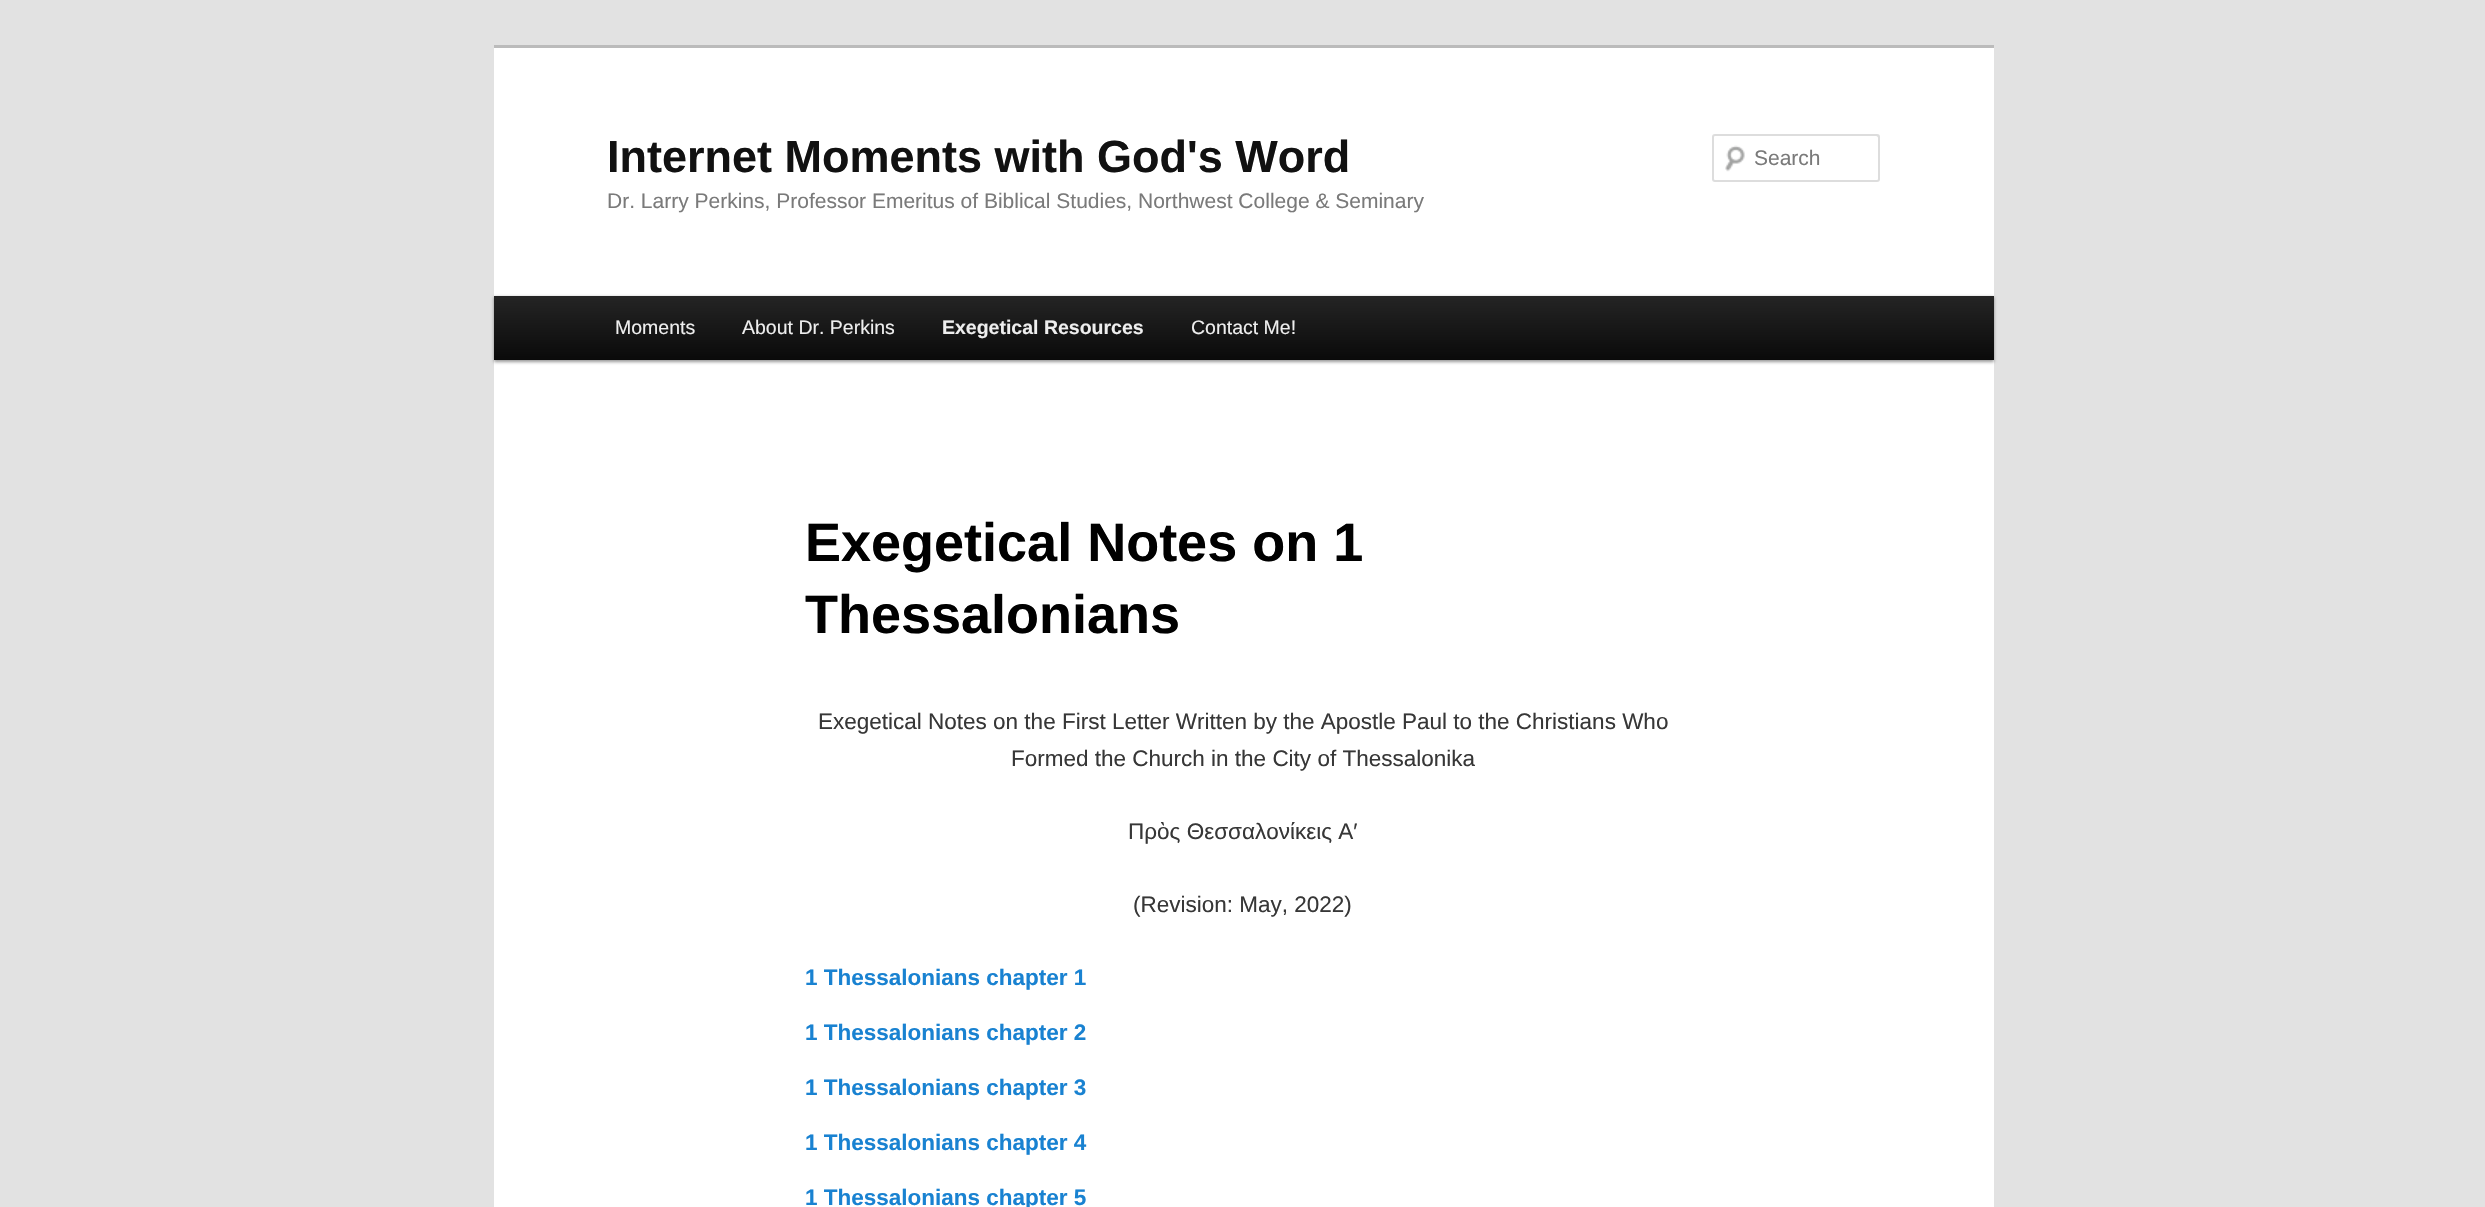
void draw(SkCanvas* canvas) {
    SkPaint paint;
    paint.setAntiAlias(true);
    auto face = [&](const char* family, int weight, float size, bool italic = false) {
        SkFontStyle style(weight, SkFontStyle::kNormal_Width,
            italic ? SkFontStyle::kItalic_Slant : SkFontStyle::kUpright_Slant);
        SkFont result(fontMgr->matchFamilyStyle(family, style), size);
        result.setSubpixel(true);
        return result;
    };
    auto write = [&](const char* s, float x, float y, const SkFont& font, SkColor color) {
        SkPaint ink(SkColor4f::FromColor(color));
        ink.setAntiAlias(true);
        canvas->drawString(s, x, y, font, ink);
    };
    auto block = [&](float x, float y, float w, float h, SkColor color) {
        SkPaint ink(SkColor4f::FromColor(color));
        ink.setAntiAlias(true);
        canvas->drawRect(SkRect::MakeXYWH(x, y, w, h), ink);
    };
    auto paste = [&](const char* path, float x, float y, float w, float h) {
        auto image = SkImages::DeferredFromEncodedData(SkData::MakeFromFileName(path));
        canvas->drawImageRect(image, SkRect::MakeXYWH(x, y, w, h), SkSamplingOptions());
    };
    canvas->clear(SkColorSetRGB(226, 226, 226));
    block(494, 48, 1500, 1159, SK_ColorWHITE);
    block(494, 45, 1500, 3, SkColorSetRGB(187, 187, 187));
    auto kFont1 = face("Liberation Sans", 700, 45);
    write("Internet Moments with God's Word", 607, 172, kFont1, SkColorSetRGB(17, 17, 17));
    auto kFont2 = face("Liberation Sans", 400, 21);
    write("Dr. Larry Perkins, Professor Emeritus of Biblical Studies, Northwest College & Seminary", 607, 208, kFont2, SkColorSetRGB(122, 122, 122));
    paste("pic1.png", 1725, 145, 20, 27);
    paint.setColor(SkColorSetRGB(230, 230, 230));
    canvas->drawPath(SkPathBuilder().moveTo(1714, 136).lineTo(1876, 136).cubicTo(1877, 136, 1878, 137, 1878, 138).lineTo(1878, 136).cubicTo(1878, 136, 1877, 135, 1876, 135).lineTo(1714, 135).cubicTo(1714, 135, 1713, 136, 1713, 136).lineTo(1713, 138).close().detach(), paint);
    paint.setStyle(SkPaint::kStroke_Style);
    paint.setStrokeWidth(2);
    paint.setColor(SkColorSetRGB(221, 221, 221));
    canvas->drawRoundRect(SkRect::MakeXYWH(1713, 135, 166, 46), 2, 2, paint);
    write("Search", 1754, 165, kFont2, SkColorSetRGB(122, 122, 122));
    paint.setStyle(SkPaint::kFill_Style);
    paint.setColor(SkColorSetARGB(102, 0, 0, 0));
    paint.setMaskFilter(SkMaskFilter::MakeBlur(kNormal_SkBlurStyle, 1.5f));
    canvas->drawRect(SkRect::MakeXYWH(494, 297, 1500, 65), paint);
    paint.setMaskFilter(nullptr);
    {
        const SkColor colors[] = {SkColorSetRGB(37, 37, 37), SkColorSetRGB(10, 10, 10)};
        const float stops[] = {0, 1};
        const SkPoint ends[] = {{1244, 295}, {1244, 360}};
        paint.setShader(SkGradientShader::MakeLinear(ends, colors, stops, 2, SkTileMode::kClamp));
        paint.setAlpha(255);
    }
    canvas->drawRect(SkRect::MakeXYWH(494, 296, 1500, 64), paint);
    auto kFont3 = face("Liberation Sans", 400, 19.5f);
    write("Moments", 615, 334, kFont3, SkColorSetRGB(238, 238, 238));
    write("About Dr. Perkins", 742, 334, kFont3, SkColorSetRGB(238, 238, 238));
    auto kFont4 = face("Liberation Sans", 700, 19.5f);
    write("Exegetical Resources", 942, 334, kFont4, SkColorSetRGB(238, 238, 238));
    write("Contact Me!", 1191, 334, kFont3, SkColorSetRGB(238, 238, 238));
    auto kFont5 = face("Liberation Sans", 700, 54);
    write("Exegetical Notes on 1", 805, 561, kFont5, SK_ColorBLACK);
    write("Thessalonians", 805, 633, kFont5, SK_ColorBLACK);
    auto kFont6 = face("Liberation Sans", 400, 22.5f);
    write("Exegetical Notes on the First Letter Written by the Apostle Paul to the Christians Who", 818, 729, kFont6, SkColorSetRGB(55, 55, 55));
    write("Formed the Church in the City of Thessalonika", 1011, 766, kFont6, SkColorSetRGB(55, 55, 55));
    write("Πρὸς Θεσσαλονίκεις Α′", 1128, 839, kFont6, SkColorSetRGB(55, 55, 55));
    write("(Revision: May, 2022)", 1133, 912, kFont6, SkColorSetRGB(55, 55, 55));
    auto kFont7 = face("Liberation Sans", 700, 22.5f);
    write("1 Thessalonians chapter 1", 805, 985, kFont7, SkColorSetRGB(25, 130, 209));
    write("1 Thessalonians chapter 2", 805, 1040, kFont7, SkColorSetRGB(25, 130, 209));
    write("1 Thessalonians chapter 3", 805, 1095, kFont7, SkColorSetRGB(25, 130, 209));
    write("1 Thessalonians chapter 4", 805, 1150, kFont7, SkColorSetRGB(25, 130, 209));
    write("1 Thessalonians chapter 5", 805, 1205, kFont7, SkColorSetRGB(25, 130, 209));
}
